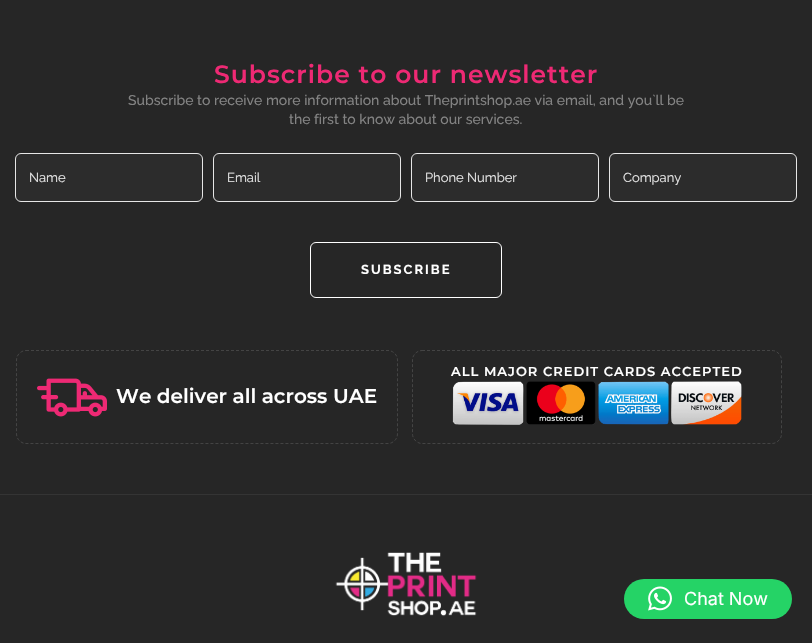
void draw(SkCanvas* canvas) {
    SkPaint paint;
    paint.setAntiAlias(true);
    auto face = [&](const char* family, int weight, float size, bool italic = false) {
        SkFontStyle style(weight, SkFontStyle::kNormal_Width,
            italic ? SkFontStyle::kItalic_Slant : SkFontStyle::kUpright_Slant);
        SkFont result(fontMgr->matchFamilyStyle(family, style), size);
        result.setSubpixel(true);
        return result;
    };
    auto write = [&](const char* s, float x, float y, const SkFont& font, SkColor color) {
        SkPaint ink(SkColor4f::FromColor(color));
        ink.setAntiAlias(true);
        canvas->drawString(s, x, y, font, ink);
    };
    auto writeSpaced = [&](const char* s, float x, float y, const SkFont& font, const SkPaint& ink, float letter, float word) {
        std::vector<SkGlyphID> glyphs(font.countText(s, strlen(s), SkTextEncoding::kUTF8));
        std::vector<float> xs(glyphs.size());
        font.textToGlyphs(s, strlen(s), SkTextEncoding::kUTF8, glyphs);
        font.getXPos(glyphs, xs, x);
        float extra = 0;
        for (size_t i = 0; i < glyphs.size(); i++) {
            xs[i] += extra;
            extra += letter + word * (glyphs[i] == font.unicharToGlyph(' '));
        }
        canvas->drawTextBlob(SkTextBlob::MakeFromPosHGlyphs(glyphs, xs, y, font), 0, 0, ink);
    };
    auto block = [&](float x, float y, float w, float h, SkColor color) {
        SkPaint ink(SkColor4f::FromColor(color));
        ink.setAntiAlias(true);
        canvas->drawRect(SkRect::MakeXYWH(x, y, w, h), ink);
    };
    auto card = [&](float x, float y, float w, float h, float radius, SkColor color) {
        SkPaint ink(SkColor4f::FromColor(color));
        ink.setAntiAlias(true);
        canvas->drawRoundRect(SkRect::MakeXYWH(x, y, w, h), radius, radius, ink);
    };
    auto paste = [&](const char* path, float x, float y, float w, float h) {
        auto image = SkImages::DeferredFromEncodedData(SkData::MakeFromFileName(path));
        canvas->drawImageRect(image, SkRect::MakeXYWH(x, y, w, h), SkSamplingOptions());
    };
    canvas->clear(SkColorSetRGB(38, 38, 38));
    auto kFont1 = face("Montserrat", 600, 25);
    paint.setColor(SkColorSetRGB(238, 41, 116));
    writeSpaced("Subscribe to our newsletter", 214, 83, kFont1, paint, 1, 0);
    auto kFont2 = face("Raleway", 500, 14);
    write("Subscribe to receive more information about Theprintshop.ae via email, and you`ll be", 128, 105, kFont2, SkColorSetRGB(131, 131, 131));
    write("the first to know about our services.", 289, 124, kFont2, SkColorSetRGB(131, 131, 131));
    paint.setColor(SkColorSetRGB(44, 44, 44));
    canvas->drawRoundRect(SkRect::MakeXYWH(15.5f, 153.5f, 187, 48), 5.5f, 5.5f, paint);
    paint.setStyle(SkPaint::kStroke_Style);
    paint.setStrokeWidth(1);
    paint.setColor(SkColorSetRGB(230, 230, 230));
    canvas->drawRoundRect(SkRect::MakeXYWH(15.5f, 153.5f, 187, 48), 5.5f, 5.5f, paint);
    auto kFont3 = face("Raleway", 400, 13);
    write("Name", 29, 182, kFont3, SkColorSetRGB(230, 230, 230));
    paint.setStyle(SkPaint::kFill_Style);
    paint.setColor(SkColorSetRGB(44, 44, 44));
    canvas->drawRoundRect(SkRect::MakeXYWH(213.5f, 153.5f, 187, 48), 5.5f, 5.5f, paint);
    paint.setStyle(SkPaint::kStroke_Style);
    paint.setColor(SkColorSetRGB(230, 230, 230));
    canvas->drawRoundRect(SkRect::MakeXYWH(213.5f, 153.5f, 187, 48), 5.5f, 5.5f, paint);
    write("Email", 227, 182, kFont3, SkColorSetRGB(230, 230, 230));
    paint.setStyle(SkPaint::kFill_Style);
    paint.setColor(SkColorSetRGB(44, 44, 44));
    canvas->drawRoundRect(SkRect::MakeXYWH(411.5f, 153.5f, 187, 48), 5.5f, 5.5f, paint);
    paint.setStyle(SkPaint::kStroke_Style);
    paint.setColor(SkColorSetRGB(230, 230, 230));
    canvas->drawRoundRect(SkRect::MakeXYWH(411.5f, 153.5f, 187, 48), 5.5f, 5.5f, paint);
    write("Phone Number", 425, 182, kFont3, SkColorSetRGB(230, 230, 230));
    paint.setStyle(SkPaint::kFill_Style);
    paint.setColor(SkColorSetRGB(44, 44, 44));
    canvas->drawRoundRect(SkRect::MakeXYWH(609.5f, 153.5f, 187, 48), 5.5f, 5.5f, paint);
    paint.setStyle(SkPaint::kStroke_Style);
    paint.setColor(SkColorSetRGB(230, 230, 230));
    canvas->drawRoundRect(SkRect::MakeXYWH(609.5f, 153.5f, 187, 48), 5.5f, 5.5f, paint);
    write("Company", 623, 182, kFont3, SkColorSetRGB(230, 230, 230));
    paint.setColor(SK_ColorWHITE);
    canvas->drawRoundRect(SkRect::MakeXYWH(310.5f, 242.5f, 191, 55), 5.5f, 5.5f, paint);
    auto kFont4 = face("Raleway", 700, 13);
    paint.setStyle(SkPaint::kFill_Style);
    writeSpaced("SUBSCRIBE", 361, 274, kFont4, paint, 2, 0);
    paint.setStyle(SkPaint::kStroke_Style);
    paint.setColor(SkColorSetRGB(68, 68, 68));
    paint.setPathEffect(SkDashPathEffect::Make({{3, 2}}, 0));
    canvas->drawPath(SkPathBuilder().moveTo(422, 350.5f).lineTo(772, 350.5f).cubicTo(777, 350.5f, 781.5f, 355, 781.5f, 360).lineTo(781.5f, 434).cubicTo(781.5f, 439, 777, 443.5f, 772, 443.5f).lineTo(422, 443.5f).cubicTo(417, 443.5f, 412.5f, 439, 412.5f, 434).lineTo(412.5f, 360).cubicTo(412.5f, 355, 417, 350.5f, 422, 350.5f).close().detach(), paint);
    paint.setPathEffect(nullptr);
    auto kFont5 = face("Montserrat", 600, 13);
    paint.setStyle(SkPaint::kFill_Style);
    paint.setColor(SK_ColorWHITE);
    writeSpaced("ALL MAJOR CREDIT CARDS ACCEPTED", 451, 376, kFont5, paint, 1, 0);
    paste("pic1.png", 452, 381, 290, 44);
    paint.setStyle(SkPaint::kStroke_Style);
    paint.setColor(SkColorSetRGB(68, 68, 68));
    paint.setPathEffect(SkDashPathEffect::Make({{3, 2}}, 0));
    canvas->drawPath(SkPathBuilder().moveTo(26, 350.5f).lineTo(388, 350.5f).cubicTo(393, 350.5f, 397.5f, 355, 397.5f, 360).lineTo(397.5f, 434).cubicTo(397.5f, 439, 393, 443.5f, 388, 443.5f).lineTo(26, 443.5f).cubicTo(21, 443.5f, 16.5f, 439, 16.5f, 434).lineTo(16.5f, 360).cubicTo(16.5f, 355, 21, 350.5f, 26, 350.5f).close().detach(), paint);
    paint.setPathEffect(nullptr);
    paste("pic2.png", 37, 378, 70, 39);
    auto kFont6 = face("Montserrat", 600, 20);
    write("We deliver all across UAE", 116, 403, kFont6, SK_ColorWHITE);
    block(0, 494, 812, 1, SkColorSetRGB(52, 52, 52));
    paste("pic3.png", 335, 552, 142, 65);
    card(624, 579, 168, 40, 20, SkColorSetRGB(37, 211, 102));
    paste("pic4.png", 648, 586, 24, 25);
    auto kFont7 = face("Inter", 400, 18);
    write("Chat Now", 684, 605, kFont7, SK_ColorWHITE);
}
